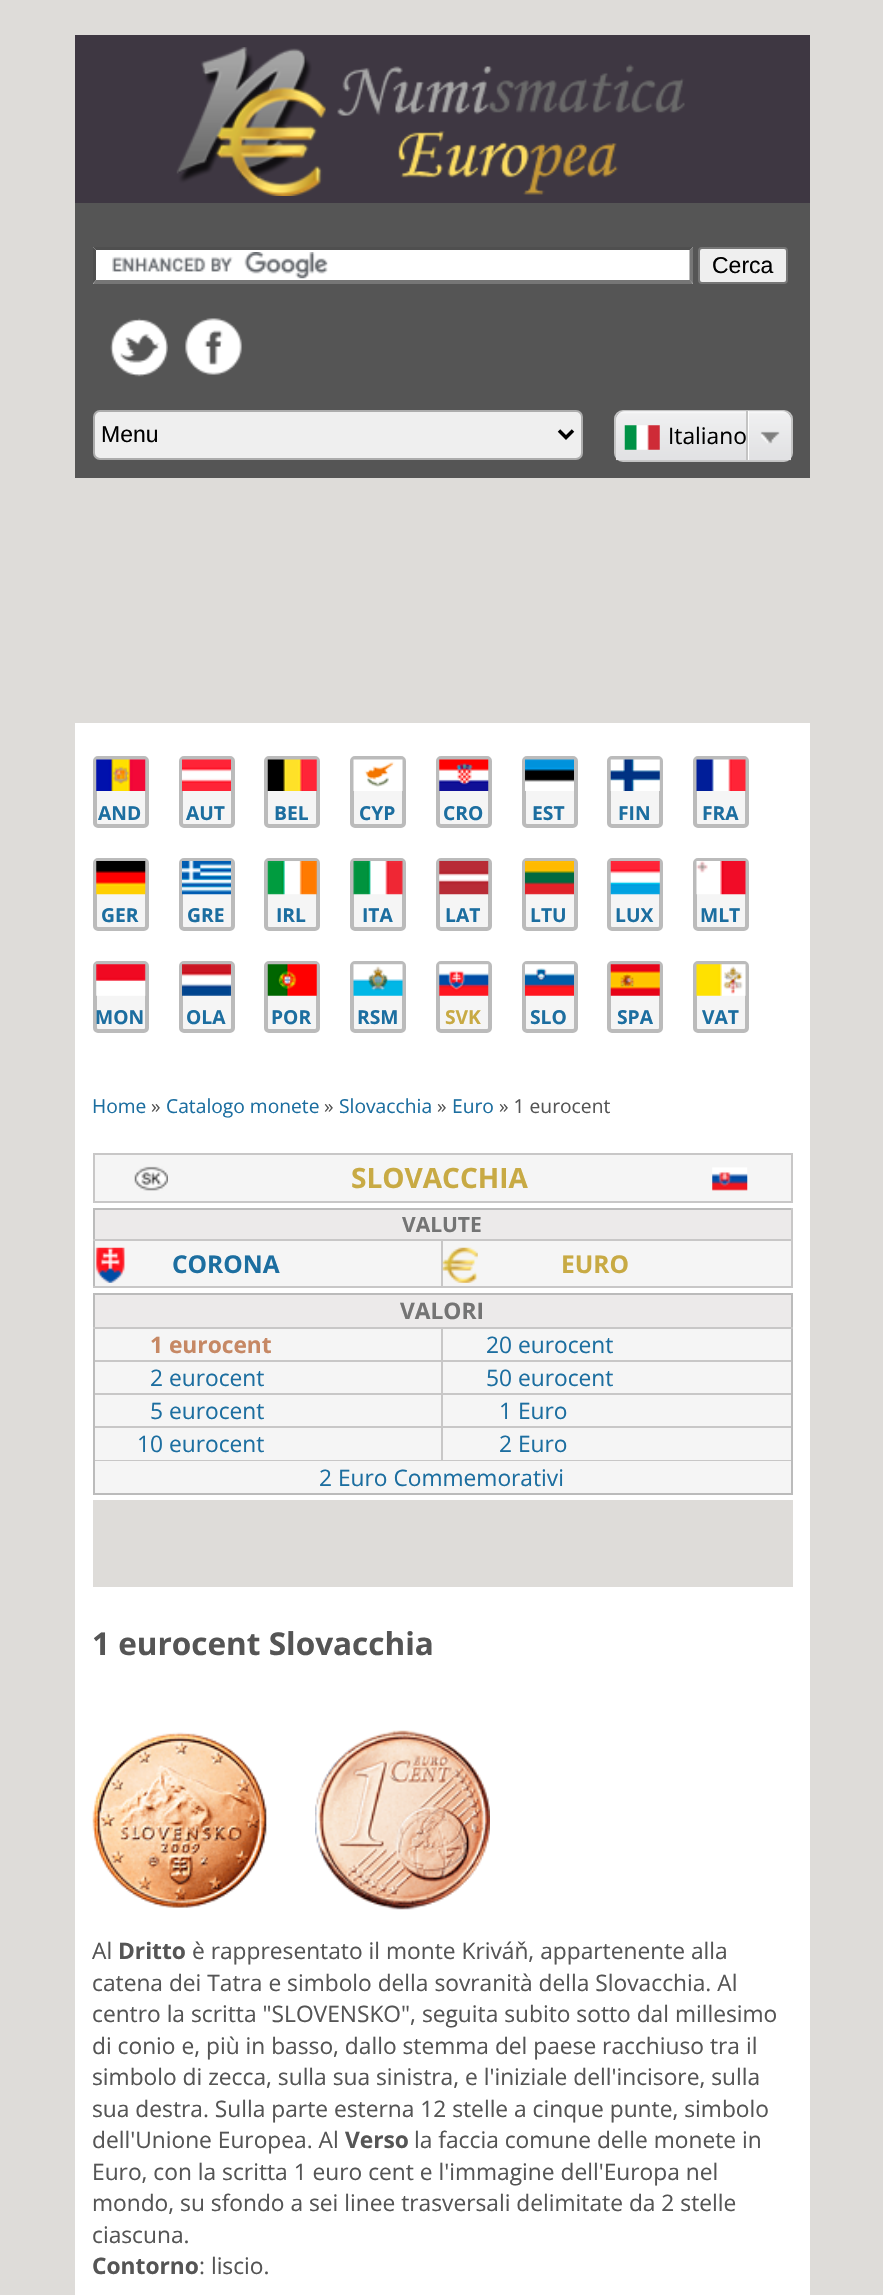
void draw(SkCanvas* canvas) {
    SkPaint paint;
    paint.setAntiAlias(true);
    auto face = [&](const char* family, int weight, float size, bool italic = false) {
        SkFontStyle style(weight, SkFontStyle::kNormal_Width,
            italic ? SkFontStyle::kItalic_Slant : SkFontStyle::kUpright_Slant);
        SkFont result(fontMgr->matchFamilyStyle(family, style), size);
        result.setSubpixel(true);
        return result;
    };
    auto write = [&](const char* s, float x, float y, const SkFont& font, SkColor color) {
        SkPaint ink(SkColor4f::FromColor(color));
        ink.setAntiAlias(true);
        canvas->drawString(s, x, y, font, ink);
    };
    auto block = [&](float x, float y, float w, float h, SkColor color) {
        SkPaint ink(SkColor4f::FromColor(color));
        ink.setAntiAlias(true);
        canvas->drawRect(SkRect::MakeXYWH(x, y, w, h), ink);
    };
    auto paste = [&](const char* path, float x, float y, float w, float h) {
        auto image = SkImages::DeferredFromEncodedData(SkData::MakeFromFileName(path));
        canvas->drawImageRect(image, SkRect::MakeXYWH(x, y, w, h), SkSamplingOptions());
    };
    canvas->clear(SkColorSetRGB(222, 220, 217));
    block(75, 35, 735, 168, SkColorSetRGB(62, 55, 66));
    paste("pic1.png", 176, 47, 509, 149);
    block(75, 203, 735, 275, SkColorSetRGB(85, 85, 85));
    block(93, 247, 600, 37, SK_ColorWHITE);
    paste("pic2.png", 112, 252, 216, 27);
    paint.setColor(SkColorSetRGB(79, 79, 79));
    canvas->drawPath(SkPathBuilder().moveTo(93, 247).lineTo(693, 247).lineTo(690, 250).lineTo(96, 250).close().detach(), paint);
    paint.setColor(SkColorSetRGB(118, 118, 118));
    canvas->drawPath(SkPathBuilder().moveTo(693, 247).lineTo(693, 283.5f).lineTo(689.5f, 280).lineTo(689.5f, 250).close().detach(), paint);
    canvas->drawPath(SkPathBuilder().moveTo(693, 284).lineTo(93, 284).lineTo(96, 280).lineTo(690, 280).close().detach(), paint);
    paint.setColor(SkColorSetRGB(79, 79, 79));
    canvas->drawPath(SkPathBuilder().moveTo(93, 283.5f).lineTo(93, 247).lineTo(96, 250).lineTo(96, 280).close().detach(), paint);
    paint.setColor(SkColorSetRGB(239, 239, 239));
    canvas->drawRoundRect(SkRect::MakeXYWH(699, 248, 88, 35), 3, 3, paint);
    paint.setStyle(SkPaint::kStroke_Style);
    paint.setStrokeWidth(2);
    paint.setColor(SkColorSetRGB(118, 118, 118));
    canvas->drawRoundRect(SkRect::MakeXYWH(699, 248, 88, 35), 3, 3, paint);
    auto kFont1 = face("Liberation Sans", 400, 23);
    write("Cerca", 712, 273, kFont1, SK_ColorBLACK);
    paste("pic3.png", 110, 318, 58, 59);
    paste("pic4.png", 185, 318, 57, 57);
    paint.setStyle(SkPaint::kFill_Style);
    paint.setColor(SkColorSetRGB(239, 239, 239));
    canvas->drawRoundRect(SkRect::MakeXYWH(94, 411, 488, 48), 6, 6, paint);
    paint.setStyle(SkPaint::kStroke_Style);
    paint.setColor(SkColorSetRGB(172, 172, 172));
    canvas->drawRoundRect(SkRect::MakeXYWH(94, 411, 488, 48), 6, 6, paint);
    paint.setStrokeWidth(3.5f);
    paint.setColor(SK_ColorBLACK);
    canvas->drawPath(SkPathBuilder().moveTo(559, 430.5f).lineTo(566, 437.5f).lineTo(573, 430.5f).detach(), paint);
    write("Menu", 101, 442, kFont1, SK_ColorBLACK);
    paint.setStrokeWidth(2);
    paint.setColor(SkColorSetRGB(195, 195, 195));
    canvas->drawRoundRect(SkRect::MakeXYWH(615, 411, 177, 50), 8, 8, paint);
    paint.setStyle(SkPaint::kFill_Style);
    paint.setColor(SkColorSetRGB(226, 226, 228));
    canvas->drawPath(SkPathBuilder().moveTo(625, 411).lineTo(782, 411).cubicTo(787, 411, 791, 415, 791, 420).lineTo(791, 460).lineTo(616, 460).lineTo(616, 420).cubicTo(616, 415, 620, 411, 625, 411).close().detach(), paint);
    paste("pic5.png", 616, 411, 175, 50);
    paste("pic6.png", 624, 425, 36, 25);
    auto kFont2 = face("Open Sans", 400, 22.75f);
    write("Italiano", 668, 444, kFont2, SK_ColorBLACK);
    block(748, 411, 1, 49, SK_ColorWHITE);
    block(746, 411, 2, 49, SkColorSetRGB(195, 195, 195));
    paste("pic7.png", 760, 431, 20, 13);
    block(75, 723, 735, 1572, SK_ColorWHITE);
    paint.setColor(SkColorSetRGB(245, 245, 245));
    canvas->drawRoundRect(SkRect::MakeXYWH(95, 758, 52, 68), 3, 3, paint);
    paint.setStyle(SkPaint::kStroke_Style);
    paint.setStrokeWidth(4);
    paint.setColor(SkColorSetRGB(187, 187, 187));
    canvas->drawRoundRect(SkRect::MakeXYWH(95, 758, 52, 68), 3, 3, paint);
    paste("pic8.png", 96, 759, 50, 32);
    auto kFont3 = face("Open Sans", 700, 19.25f);
    write("AND", 98, 820, kFont3, SkColorSetRGB(28, 110, 160));
    paint.setStyle(SkPaint::kFill_Style);
    paint.setColor(SkColorSetRGB(245, 245, 245));
    canvas->drawRoundRect(SkRect::MakeXYWH(181, 758, 52, 68), 3, 3, paint);
    paint.setStyle(SkPaint::kStroke_Style);
    paint.setColor(SkColorSetRGB(187, 187, 187));
    canvas->drawRoundRect(SkRect::MakeXYWH(181, 758, 52, 68), 3, 3, paint);
    paste("pic9.png", 182, 759, 49, 32);
    write("AUT", 186, 820, kFont3, SkColorSetRGB(28, 110, 160));
    paint.setStyle(SkPaint::kFill_Style);
    paint.setColor(SkColorSetRGB(245, 245, 245));
    canvas->drawRoundRect(SkRect::MakeXYWH(266, 758, 52, 68), 3, 3, paint);
    paint.setStyle(SkPaint::kStroke_Style);
    paint.setColor(SkColorSetRGB(187, 187, 187));
    canvas->drawRoundRect(SkRect::MakeXYWH(266, 758, 52, 68), 3, 3, paint);
    paste("pic10.png", 267, 759, 50, 32);
    write("BEL", 274, 820, kFont3, SkColorSetRGB(28, 110, 160));
    paint.setStyle(SkPaint::kFill_Style);
    paint.setColor(SkColorSetRGB(245, 245, 245));
    canvas->drawRoundRect(SkRect::MakeXYWH(352, 758, 52, 68), 3, 3, paint);
    paint.setStyle(SkPaint::kStroke_Style);
    paint.setColor(SkColorSetRGB(187, 187, 187));
    canvas->drawRoundRect(SkRect::MakeXYWH(352, 758, 52, 68), 3, 3, paint);
    paste("pic11.png", 353, 759, 50, 32);
    write("CYP", 359, 820, kFont3, SkColorSetRGB(28, 110, 160));
    paint.setStyle(SkPaint::kFill_Style);
    paint.setColor(SkColorSetRGB(245, 245, 245));
    canvas->drawRoundRect(SkRect::MakeXYWH(438, 758, 52, 68), 3, 3, paint);
    paint.setStyle(SkPaint::kStroke_Style);
    paint.setColor(SkColorSetRGB(187, 187, 187));
    canvas->drawRoundRect(SkRect::MakeXYWH(438, 758, 52, 68), 3, 3, paint);
    paste("pic12.png", 439, 759, 50, 32);
    write("CRO", 443, 820, kFont3, SkColorSetRGB(28, 110, 160));
    paint.setStyle(SkPaint::kFill_Style);
    paint.setColor(SkColorSetRGB(245, 245, 245));
    canvas->drawRoundRect(SkRect::MakeXYWH(524, 758, 52, 68), 3, 3, paint);
    paint.setStyle(SkPaint::kStroke_Style);
    paint.setColor(SkColorSetRGB(187, 187, 187));
    canvas->drawRoundRect(SkRect::MakeXYWH(524, 758, 52, 68), 3, 3, paint);
    paste("pic13.png", 525, 759, 49, 32);
    write("EST", 532, 820, kFont3, SkColorSetRGB(28, 110, 160));
    paint.setStyle(SkPaint::kFill_Style);
    paint.setColor(SkColorSetRGB(245, 245, 245));
    canvas->drawRoundRect(SkRect::MakeXYWH(609, 758, 52, 68), 3, 3, paint);
    paint.setStyle(SkPaint::kStroke_Style);
    paint.setColor(SkColorSetRGB(187, 187, 187));
    canvas->drawRoundRect(SkRect::MakeXYWH(609, 758, 52, 68), 3, 3, paint);
    paste("pic14.png", 610, 759, 50, 32);
    write("FIN", 618, 820, kFont3, SkColorSetRGB(28, 110, 160));
    paint.setStyle(SkPaint::kFill_Style);
    paint.setColor(SkColorSetRGB(245, 245, 245));
    canvas->drawRoundRect(SkRect::MakeXYWH(695, 758, 52, 68), 3, 3, paint);
    paint.setStyle(SkPaint::kStroke_Style);
    paint.setColor(SkColorSetRGB(187, 187, 187));
    canvas->drawRoundRect(SkRect::MakeXYWH(695, 758, 52, 68), 3, 3, paint);
    paste("pic15.png", 696, 759, 50, 32);
    write("FRA", 702, 820, kFont3, SkColorSetRGB(28, 110, 160));
    paint.setStyle(SkPaint::kFill_Style);
    paint.setColor(SkColorSetRGB(245, 245, 245));
    canvas->drawRoundRect(SkRect::MakeXYWH(95, 860, 52, 69), 3, 3, paint);
    paint.setStyle(SkPaint::kStroke_Style);
    paint.setColor(SkColorSetRGB(187, 187, 187));
    canvas->drawRoundRect(SkRect::MakeXYWH(95, 860, 52, 69), 3, 3, paint);
    paste("pic16.png", 96, 861, 50, 34);
    write("GER", 101, 922, kFont3, SkColorSetRGB(28, 110, 160));
    paint.setStyle(SkPaint::kFill_Style);
    paint.setColor(SkColorSetRGB(245, 245, 245));
    canvas->drawRoundRect(SkRect::MakeXYWH(181, 860, 52, 69), 3, 3, paint);
    paint.setStyle(SkPaint::kStroke_Style);
    paint.setColor(SkColorSetRGB(187, 187, 187));
    canvas->drawRoundRect(SkRect::MakeXYWH(181, 860, 52, 69), 3, 3, paint);
    paste("pic17.png", 182, 861, 49, 34);
    write("GRE", 187, 922, kFont3, SkColorSetRGB(28, 110, 160));
    paint.setStyle(SkPaint::kFill_Style);
    paint.setColor(SkColorSetRGB(245, 245, 245));
    canvas->drawRoundRect(SkRect::MakeXYWH(266, 860, 52, 69), 3, 3, paint);
    paint.setStyle(SkPaint::kStroke_Style);
    paint.setColor(SkColorSetRGB(187, 187, 187));
    canvas->drawRoundRect(SkRect::MakeXYWH(266, 860, 52, 69), 3, 3, paint);
    paste("pic18.png", 267, 861, 50, 34);
    write("IRL", 276, 922, kFont3, SkColorSetRGB(28, 110, 160));
    paint.setStyle(SkPaint::kFill_Style);
    paint.setColor(SkColorSetRGB(245, 245, 245));
    canvas->drawRoundRect(SkRect::MakeXYWH(352, 860, 52, 69), 3, 3, paint);
    paint.setStyle(SkPaint::kStroke_Style);
    paint.setColor(SkColorSetRGB(187, 187, 187));
    canvas->drawRoundRect(SkRect::MakeXYWH(352, 860, 52, 69), 3, 3, paint);
    paste("pic19.png", 353, 861, 50, 34);
    write("ITA", 362, 922, kFont3, SkColorSetRGB(28, 110, 160));
    paint.setStyle(SkPaint::kFill_Style);
    paint.setColor(SkColorSetRGB(245, 245, 245));
    canvas->drawRoundRect(SkRect::MakeXYWH(438, 860, 52, 69), 3, 3, paint);
    paint.setStyle(SkPaint::kStroke_Style);
    paint.setColor(SkColorSetRGB(187, 187, 187));
    canvas->drawRoundRect(SkRect::MakeXYWH(438, 860, 52, 69), 3, 3, paint);
    paste("pic20.png", 439, 861, 50, 34);
    write("LAT", 445, 922, kFont3, SkColorSetRGB(28, 110, 160));
    paint.setStyle(SkPaint::kFill_Style);
    paint.setColor(SkColorSetRGB(245, 245, 245));
    canvas->drawRoundRect(SkRect::MakeXYWH(524, 860, 52, 69), 3, 3, paint);
    paint.setStyle(SkPaint::kStroke_Style);
    paint.setColor(SkColorSetRGB(187, 187, 187));
    canvas->drawRoundRect(SkRect::MakeXYWH(524, 860, 52, 69), 3, 3, paint);
    paste("pic21.png", 525, 861, 49, 34);
    write("LTU", 530, 922, kFont3, SkColorSetRGB(28, 110, 160));
    paint.setStyle(SkPaint::kFill_Style);
    paint.setColor(SkColorSetRGB(245, 245, 245));
    canvas->drawRoundRect(SkRect::MakeXYWH(609, 860, 52, 69), 3, 3, paint);
    paint.setStyle(SkPaint::kStroke_Style);
    paint.setColor(SkColorSetRGB(187, 187, 187));
    canvas->drawRoundRect(SkRect::MakeXYWH(609, 860, 52, 69), 3, 3, paint);
    paste("pic22.png", 610, 861, 50, 34);
    write("LUX", 615, 922, kFont3, SkColorSetRGB(28, 110, 160));
    paint.setStyle(SkPaint::kFill_Style);
    paint.setColor(SkColorSetRGB(245, 245, 245));
    canvas->drawRoundRect(SkRect::MakeXYWH(695, 860, 52, 69), 3, 3, paint);
    paint.setStyle(SkPaint::kStroke_Style);
    paint.setColor(SkColorSetRGB(187, 187, 187));
    canvas->drawRoundRect(SkRect::MakeXYWH(695, 860, 52, 69), 3, 3, paint);
    paste("pic23.png", 696, 861, 50, 34);
    write("MLT", 700, 922, kFont3, SkColorSetRGB(28, 110, 160));
    paint.setStyle(SkPaint::kFill_Style);
    paint.setColor(SkColorSetRGB(245, 245, 245));
    canvas->drawRoundRect(SkRect::MakeXYWH(95, 963, 52, 68), 3, 3, paint);
    paint.setStyle(SkPaint::kStroke_Style);
    paint.setColor(SkColorSetRGB(187, 187, 187));
    canvas->drawRoundRect(SkRect::MakeXYWH(95, 963, 52, 68), 3, 3, paint);
    paste("pic24.png", 96, 964, 50, 32);
    write("MON", 95, 1024, kFont3, SkColorSetRGB(28, 110, 160));
    paint.setStyle(SkPaint::kFill_Style);
    paint.setColor(SkColorSetRGB(245, 245, 245));
    canvas->drawRoundRect(SkRect::MakeXYWH(181, 963, 52, 68), 3, 3, paint);
    paint.setStyle(SkPaint::kStroke_Style);
    paint.setColor(SkColorSetRGB(187, 187, 187));
    canvas->drawRoundRect(SkRect::MakeXYWH(181, 963, 52, 68), 3, 3, paint);
    paste("pic25.png", 182, 964, 49, 32);
    write("OLA", 186, 1024, kFont3, SkColorSetRGB(28, 110, 160));
    paint.setStyle(SkPaint::kFill_Style);
    paint.setColor(SkColorSetRGB(245, 245, 245));
    canvas->drawRoundRect(SkRect::MakeXYWH(266, 963, 52, 68), 3, 3, paint);
    paint.setStyle(SkPaint::kStroke_Style);
    paint.setColor(SkColorSetRGB(187, 187, 187));
    canvas->drawRoundRect(SkRect::MakeXYWH(266, 963, 52, 68), 3, 3, paint);
    paste("pic26.png", 267, 964, 50, 32);
    write("POR", 271, 1024, kFont3, SkColorSetRGB(28, 110, 160));
    paint.setStyle(SkPaint::kFill_Style);
    paint.setColor(SkColorSetRGB(245, 245, 245));
    canvas->drawRoundRect(SkRect::MakeXYWH(352, 963, 52, 68), 3, 3, paint);
    paint.setStyle(SkPaint::kStroke_Style);
    paint.setColor(SkColorSetRGB(187, 187, 187));
    canvas->drawRoundRect(SkRect::MakeXYWH(352, 963, 52, 68), 3, 3, paint);
    paste("pic27.png", 353, 964, 50, 32);
    write("RSM", 357, 1024, kFont3, SkColorSetRGB(28, 110, 160));
    paint.setStyle(SkPaint::kFill_Style);
    paint.setColor(SkColorSetRGB(245, 245, 245));
    canvas->drawRoundRect(SkRect::MakeXYWH(438, 963, 52, 68), 3, 3, paint);
    paint.setStyle(SkPaint::kStroke_Style);
    paint.setColor(SkColorSetRGB(187, 187, 187));
    canvas->drawRoundRect(SkRect::MakeXYWH(438, 963, 52, 68), 3, 3, paint);
    paste("pic28.png", 439, 964, 50, 32);
    write("SVK", 445, 1024, kFont3, SkColorSetRGB(200, 170, 68));
    paint.setStyle(SkPaint::kFill_Style);
    paint.setColor(SkColorSetRGB(245, 245, 245));
    canvas->drawRoundRect(SkRect::MakeXYWH(524, 963, 52, 68), 3, 3, paint);
    paint.setStyle(SkPaint::kStroke_Style);
    paint.setColor(SkColorSetRGB(187, 187, 187));
    canvas->drawRoundRect(SkRect::MakeXYWH(524, 963, 52, 68), 3, 3, paint);
    paste("pic29.png", 525, 964, 49, 32);
    write("SLO", 530, 1024, kFont3, SkColorSetRGB(28, 110, 160));
    paint.setStyle(SkPaint::kFill_Style);
    paint.setColor(SkColorSetRGB(245, 245, 245));
    canvas->drawRoundRect(SkRect::MakeXYWH(609, 963, 52, 68), 3, 3, paint);
    paint.setStyle(SkPaint::kStroke_Style);
    paint.setColor(SkColorSetRGB(187, 187, 187));
    canvas->drawRoundRect(SkRect::MakeXYWH(609, 963, 52, 68), 3, 3, paint);
    paste("pic30.png", 610, 964, 50, 32);
    write("SPA", 617, 1024, kFont3, SkColorSetRGB(28, 110, 160));
    paint.setStyle(SkPaint::kFill_Style);
    paint.setColor(SkColorSetRGB(245, 245, 245));
    canvas->drawRoundRect(SkRect::MakeXYWH(695, 963, 52, 68), 3, 3, paint);
    paint.setStyle(SkPaint::kStroke_Style);
    paint.setColor(SkColorSetRGB(187, 187, 187));
    canvas->drawRoundRect(SkRect::MakeXYWH(695, 963, 52, 68), 3, 3, paint);
    paste("pic31.png", 696, 964, 50, 32);
    write("VAT", 702, 1024, kFont3, SkColorSetRGB(28, 110, 160));
    auto kFont4 = face("Open Sans", 400, 19.25f);
    write("Home", 92, 1113, kFont4, SkColorSetRGB(28, 110, 160));
    write("»", 151, 1113, kFont4, SkColorSetRGB(85, 85, 85));
    write("Catalogo monete", 166, 1113, kFont4, SkColorSetRGB(28, 110, 160));
    write("»", 324, 1113, kFont4, SkColorSetRGB(85, 85, 85));
    write("Slovacchia", 339, 1113, kFont4, SkColorSetRGB(28, 110, 160));
    write("»", 437, 1113, kFont4, SkColorSetRGB(85, 85, 85));
    write("Euro", 452, 1113, kFont4, SkColorSetRGB(28, 110, 160));
    write("» 1 eurocent", 499, 1113, kFont4, SkColorSetRGB(85, 85, 85));
    block(93, 1153, 700, 2, SkColorSetRGB(200, 199, 199));
    block(791, 1153, 2, 49, SkColorSetRGB(200, 199, 199));
    block(93, 1201, 700, 2, SkColorSetRGB(200, 199, 199));
    block(93, 1153, 2, 49, SkColorSetRGB(200, 199, 199));
    block(95, 1155, 696, 46, SkColorSetRGB(245, 245, 245));
    paste("pic32.png", 134, 1166, 34, 25);
    auto kFont5 = face("Open Sans", 700, 28);
    write("SLOVACCHIA", 351, 1188, kFont5, SkColorSetRGB(200, 170, 68));
    paste("pic33.png", 712, 1167, 36, 24);
    block(93, 1208, 700, 2, SkColorSetRGB(187, 187, 187));
    block(93, 1208, 2, 80, SkColorSetRGB(187, 187, 187));
    block(95, 1210, 696, 29, SkColorSetRGB(236, 234, 234));
    block(791, 1208, 2, 80, SkColorSetRGB(200, 199, 199));
    block(441, 1239, 2, 47, SkColorSetRGB(200, 199, 199));
    block(93, 1239, 700, 2, SkColorSetRGB(200, 199, 199));
    auto kFont6 = face("Open Sans", 700, 21);
    write("VALUTE", 402, 1232, kFont6, SkColorSetRGB(116, 116, 116));
    block(93, 1286, 700, 2, SkColorSetRGB(200, 199, 199));
    block(95, 1241, 346, 45, SkColorSetRGB(245, 245, 245));
    paste("pic34.png", 95, 1247, 30, 36);
    auto kFont7 = face("Open Sans", 700, 24.5f);
    write("CORONA", 172, 1273, kFont7, SkColorSetRGB(28, 110, 160));
    block(443, 1241, 348, 45, SkColorSetRGB(245, 245, 245));
    paste("pic35.png", 442, 1247, 36, 36);
    write("EURO", 561, 1273, kFont7, SkColorSetRGB(200, 170, 68));
    block(93, 1293, 700, 2, SkColorSetRGB(187, 187, 187));
    block(791, 1293, 2, 202, SkColorSetRGB(187, 187, 187));
    block(93, 1493, 700, 2, SkColorSetRGB(187, 187, 187));
    block(93, 1360, 350, 2, SkColorSetRGB(200, 199, 199));
    block(93, 1393, 350, 2, SkColorSetRGB(200, 199, 199));
    block(93, 1426, 350, 2, SkColorSetRGB(200, 199, 199));
    block(93, 1460, 350, 1, SkColorSetRGB(200, 199, 199));
    block(93, 1293, 2, 202, SkColorSetRGB(187, 187, 187));
    block(95, 1295, 696, 32, SkColorSetRGB(236, 234, 234));
    block(441, 1327, 2, 134, SkColorSetRGB(200, 199, 199));
    block(93, 1327, 700, 2, SkColorSetRGB(200, 199, 199));
    auto kFont8 = face("Open Sans", 700, 22.75f);
    write("VALORI", 400, 1319, kFont8, SkColorSetRGB(116, 116, 116));
    block(95, 1329, 346, 31, SkColorSetRGB(245, 245, 245));
    write("1 eurocent", 150, 1353, kFont8, SkColorSetRGB(198, 136, 100));
    block(443, 1329, 348, 31, SkColorSetRGB(245, 245, 245));
    write("20 eurocent", 486, 1353, kFont2, SkColorSetRGB(28, 110, 160));
    block(443, 1360, 348, 2, SkColorSetRGB(200, 199, 199));
    block(95, 1362, 346, 31, SkColorSetRGB(245, 245, 245));
    write("2 eurocent", 150, 1386, kFont2, SkColorSetRGB(28, 110, 160));
    block(443, 1362, 348, 31, SkColorSetRGB(245, 245, 245));
    write("50 eurocent", 486, 1386, kFont2, SkColorSetRGB(28, 110, 160));
    block(443, 1393, 348, 2, SkColorSetRGB(200, 199, 199));
    block(95, 1395, 346, 31, SkColorSetRGB(245, 245, 245));
    write("5 eurocent", 150, 1419, kFont2, SkColorSetRGB(28, 110, 160));
    block(443, 1395, 348, 31, SkColorSetRGB(245, 245, 245));
    write("1 Euro", 499, 1419, kFont2, SkColorSetRGB(28, 110, 160));
    block(443, 1426, 348, 2, SkColorSetRGB(200, 199, 199));
    block(95, 1428, 346, 32, SkColorSetRGB(245, 245, 245));
    write("10 eurocent", 137, 1452, kFont2, SkColorSetRGB(28, 110, 160));
    block(443, 1428, 348, 32, SkColorSetRGB(245, 245, 245));
    write("2 Euro", 499, 1452, kFont2, SkColorSetRGB(28, 110, 160));
    block(443, 1460, 348, 1, SkColorSetRGB(200, 199, 199));
    block(95, 1461, 696, 32, SkColorSetRGB(245, 245, 245));
    write("2 Euro Commemorativi", 319, 1486, kFont2, SkColorSetRGB(28, 110, 160));
    block(93, 1500, 700, 87, SkColorSetRGB(222, 220, 217));
    auto kFont9 = face("Open Sans", 700, 31.5f);
    write("1 eurocent Slovacchia", 92, 1655, kFont9, SkColorSetRGB(85, 85, 85));
    paste("pic36.png", 92, 1732, 176, 176);
    paste("pic37.png", 315, 1730, 175, 180);
    write("Al", 92, 1959, kFont2, SkColorSetRGB(85, 85, 85));
    write("Dritto", 118, 1959, kFont8, SkColorSetRGB(85, 85, 85));
    write("è rappresentato il monte Kriváň, appartenente alla", 192, 1959, kFont2, SkColorSetRGB(85, 85, 85));
    write("catena dei Tatra e simbolo della sovranità della Slovacchia. Al", 92, 1991, kFont2, SkColorSetRGB(85, 85, 85));
    write("centro la scritta \"SLOVENSKO\", seguita subito sotto dal millesimo", 92, 2022, kFont2, SkColorSetRGB(85, 85, 85));
    write("di conio e, più in basso, dallo stemma del paese racchiuso tra il", 92, 2054, kFont2, SkColorSetRGB(85, 85, 85));
    write("simbolo di zecca, sulla sua sinistra, e l'iniziale dell'incisore, sulla", 92, 2085, kFont2, SkColorSetRGB(85, 85, 85));
    write("sua destra. Sulla parte esterna 12 stelle a cinque punte, simbolo", 92, 2117, kFont2, SkColorSetRGB(85, 85, 85));
    write("dell'Unione Europea. Al", 92, 2148, kFont2, SkColorSetRGB(85, 85, 85));
    write("Verso", 345, 2148, kFont8, SkColorSetRGB(85, 85, 85));
    write("la faccia comune delle monete in", 414, 2148, kFont2, SkColorSetRGB(85, 85, 85));
    write("Euro, con la scritta 1 euro cent e l'immagine dell'Europa nel", 92, 2180, kFont2, SkColorSetRGB(85, 85, 85));
    write("mondo, su sfondo a sei linee trasversali delimitate da 2 stelle", 92, 2211, kFont2, SkColorSetRGB(85, 85, 85));
    write("ciascuna.", 92, 2243, kFont2, SkColorSetRGB(85, 85, 85));
    write("Contorno", 92, 2274, kFont8, SkColorSetRGB(85, 85, 85));
    write(": liscio.", 199, 2274, kFont2, SkColorSetRGB(85, 85, 85));
}
